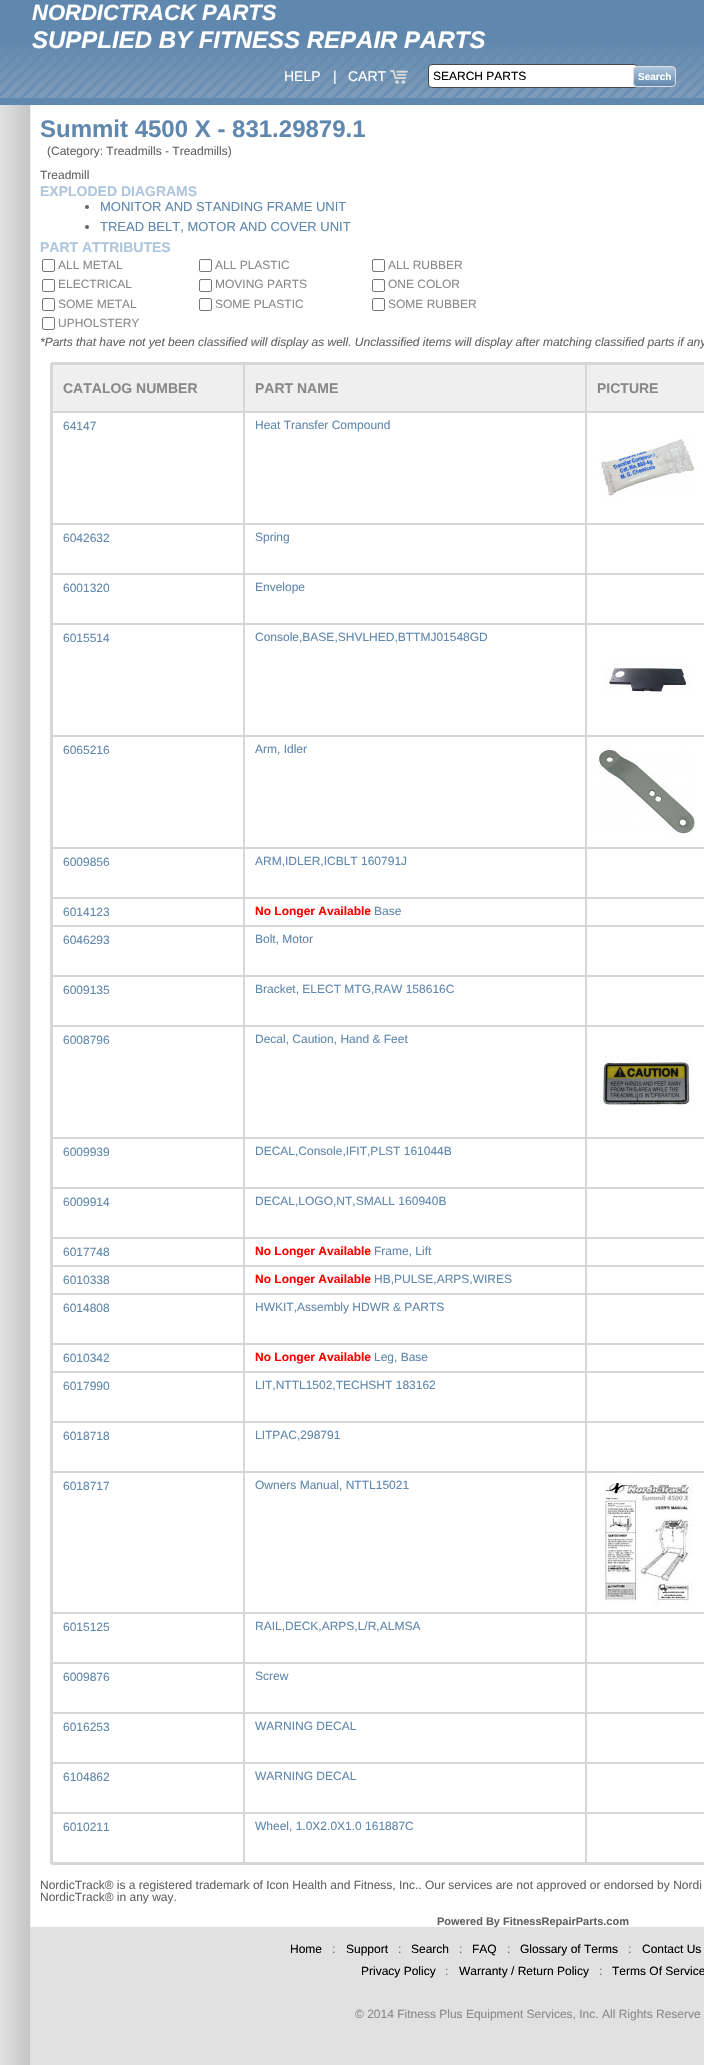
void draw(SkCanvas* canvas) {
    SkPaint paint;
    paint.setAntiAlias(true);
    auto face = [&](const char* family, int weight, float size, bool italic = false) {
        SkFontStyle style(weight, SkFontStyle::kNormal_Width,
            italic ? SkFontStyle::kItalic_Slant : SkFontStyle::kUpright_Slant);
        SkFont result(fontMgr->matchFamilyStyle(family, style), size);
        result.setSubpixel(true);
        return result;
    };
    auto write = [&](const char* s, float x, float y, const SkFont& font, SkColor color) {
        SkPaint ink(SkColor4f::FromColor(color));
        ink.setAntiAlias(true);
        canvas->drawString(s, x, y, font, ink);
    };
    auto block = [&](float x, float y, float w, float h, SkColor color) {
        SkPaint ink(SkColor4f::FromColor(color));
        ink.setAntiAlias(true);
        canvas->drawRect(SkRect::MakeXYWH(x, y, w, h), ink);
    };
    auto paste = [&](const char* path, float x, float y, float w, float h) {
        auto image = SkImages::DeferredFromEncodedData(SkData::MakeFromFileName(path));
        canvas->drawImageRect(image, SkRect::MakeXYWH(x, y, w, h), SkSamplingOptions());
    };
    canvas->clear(SkColorSetRGB(96, 135, 173));
    paste("pic1.png", 0, 43, 704, 55);
    auto kFont1 = face("Liberation Sans", 700, 22, true);
    write("NORDICTRACK PARTS", 32, 20, kFont1, SK_ColorWHITE);
    auto kFont2 = face("Liberation Sans", 700, 24, true);
    write("SUPPLIED BY FITNESS REPAIR PARTS", 32, 48, kFont2, SK_ColorWHITE);
    auto kFont3 = face("Liberation Sans", 400, 14);
    write("HELP", 284, 81, kFont3, SK_ColorWHITE);
    write("|", 333, 81, kFont3, SK_ColorWHITE);
    write("CART", 348, 81, kFont3, SK_ColorWHITE);
    paste("pic2.png", 390, 70, 18, 14);
    paint.setColor(SK_ColorWHITE);
    canvas->drawRoundRect(SkRect::MakeXYWH(428.5f, 64.5f, 209, 23), 3.5f, 3.5f, paint);
    paint.setStyle(SkPaint::kStroke_Style);
    paint.setStrokeWidth(1);
    paint.setColor(SkColorSetRGB(71, 71, 71));
    canvas->drawRoundRect(SkRect::MakeXYWH(428.5f, 64.5f, 209, 23), 3.5f, 3.5f, paint);
    auto kFont4 = face("Liberation Sans", 400, 12);
    write("SEARCH PARTS", 433, 80, kFont4, SK_ColorBLACK);
    canvas->save();
    canvas->clipPath(SkPathBuilder().moveTo(637, 66).lineTo(672, 66).cubicTo(674, 66, 676, 68, 676, 70).lineTo(676, 83).cubicTo(676, 85, 674, 87, 672, 87).lineTo(637, 87).cubicTo(635, 87, 633, 85, 633, 83).lineTo(633, 70).cubicTo(633, 68, 635, 66, 637, 66).close().detach(), true);
    paint.setStyle(SkPaint::kFill_Style);
    {
        const SkColor colors[] = {SkColorSetRGB(175, 198, 220), SkColorSetRGB(96, 135, 173)};
        const float stops[] = {0, 1};
        const SkPoint ends[] = {{655, 67}, {655, 86}};
        paint.setShader(SkGradientShader::MakeLinear(ends, colors, stops, 2, SkTileMode::kClamp));
        paint.setAlpha(255);
    }
    canvas->drawRect(SkRect::MakeXYWH(633, 67, 43, 19), paint);
    canvas->restore();
    paint.setStyle(SkPaint::kStroke_Style);
    paint.setShader(nullptr);
    paint.setColor(SkColorSetRGB(225, 225, 225));
    canvas->drawRoundRect(SkRect::MakeXYWH(633.5f, 66.5f, 42, 20), 3.5f, 3.5f, paint);
    auto kFont5 = face("Liberation Sans", 700, 10);
    write("Search", 638, 80, kFont5, SK_ColorWHITE);
    block(31, 105, 673, 1822, SK_ColorWHITE);
    paste("pic3.png", 0, 105, 31, 1960);
    auto kFont6 = face("Liberation Sans", 700, 24);
    write("Summit 4500 X - 831.29879.1", 40, 137, kFont6, SkColorSetRGB(96, 135, 173));
    write("(Category: Treadmills - Treadmills)", 47, 155, kFont4, SkColorSetRGB(99, 99, 99));
    write("Treadmill", 40, 179, kFont4, SkColorSetRGB(99, 99, 99));
    auto kFont7 = face("Liberation Sans", 700, 14);
    write("EXPLODED DIAGRAMS", 40, 196, kFont7, SkColorSetRGB(175, 198, 220));
    paint.setStyle(SkPaint::kFill_Style);
    paint.setColor(SkColorSetRGB(99, 99, 99));
    canvas->drawCircle(87, 207, 2, paint);
    auto kFont8 = face("Liberation Sans", 400, 13);
    write("MONITOR AND STANDING FRAME UNIT", 100, 211, kFont8, SkColorSetRGB(96, 135, 173));
    canvas->drawCircle(87, 227, 2, paint);
    write("TREAD BELT, MOTOR AND COVER UNIT", 100, 231, kFont8, SkColorSetRGB(96, 135, 173));
    write("PART ATTRIBUTES", 40, 252, kFont7, SkColorSetRGB(175, 198, 220));
    paint.setStyle(SkPaint::kStroke_Style);
    paint.setColor(SkColorSetRGB(118, 118, 118));
    canvas->drawRoundRect(SkRect::MakeXYWH(42.5f, 259.5f, 12, 12), 1.5f, 1.5f, paint);
    write("ALL METAL", 58, 269, kFont4, SkColorSetRGB(137, 137, 137));
    canvas->drawRoundRect(SkRect::MakeXYWH(199.5f, 259.5f, 12, 12), 1.5f, 1.5f, paint);
    write("ALL PLASTIC", 215, 269, kFont4, SkColorSetRGB(137, 137, 137));
    canvas->drawRoundRect(SkRect::MakeXYWH(372.5f, 259.5f, 12, 12), 1.5f, 1.5f, paint);
    write("ALL RUBBER", 388, 269, kFont4, SkColorSetRGB(137, 137, 137));
    canvas->drawRoundRect(SkRect::MakeXYWH(42.5f, 279.5f, 12, 12), 1.5f, 1.5f, paint);
    write("ELECTRICAL", 58, 288, kFont4, SkColorSetRGB(137, 137, 137));
    canvas->drawRoundRect(SkRect::MakeXYWH(199.5f, 279.5f, 12, 12), 1.5f, 1.5f, paint);
    write("MOVING PARTS", 215, 288, kFont4, SkColorSetRGB(137, 137, 137));
    canvas->drawRoundRect(SkRect::MakeXYWH(372.5f, 279.5f, 12, 12), 1.5f, 1.5f, paint);
    write("ONE COLOR", 388, 288, kFont4, SkColorSetRGB(137, 137, 137));
    canvas->drawRoundRect(SkRect::MakeXYWH(42.5f, 298.5f, 12, 12), 1.5f, 1.5f, paint);
    write("SOME METAL", 58, 308, kFont4, SkColorSetRGB(137, 137, 137));
    canvas->drawRoundRect(SkRect::MakeXYWH(199.5f, 298.5f, 12, 12), 1.5f, 1.5f, paint);
    write("SOME PLASTIC", 215, 308, kFont4, SkColorSetRGB(137, 137, 137));
    canvas->drawRoundRect(SkRect::MakeXYWH(372.5f, 298.5f, 12, 12), 1.5f, 1.5f, paint);
    write("SOME RUBBER", 388, 308, kFont4, SkColorSetRGB(137, 137, 137));
    canvas->drawRoundRect(SkRect::MakeXYWH(42.5f, 317.5f, 12, 12), 1.5f, 1.5f, paint);
    write("UPHOLSTERY", 58, 327, kFont4, SkColorSetRGB(137, 137, 137));
    auto kFont9 = face("Liberation Sans", 400, 12, true);
    write("*Parts that have not yet been classified will display as well. Unclassified items will display after matching classified parts if any", 40, 346, kFont9, SkColorSetRGB(99, 99, 99));
    paint.setStrokeWidth(2);
    paint.setColor(SkColorSetRGB(215, 215, 215));
    canvas->drawRoundRect(SkRect::MakeXYWH(51, 363, 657, 1501), 2, 2, paint);
    block(53, 365, 651, 46, SkColorSetRGB(239, 239, 239));
    paint.setStrokeWidth(1);
    canvas->drawRect(SkRect::MakeXYWH(52.5f, 364.5f, 191, 47), paint);
    write("CATALOG NUMBER", 63, 393, kFont7, SkColorSetRGB(137, 137, 137));
    canvas->drawRect(SkRect::MakeXYWH(244.5f, 364.5f, 341, 47), paint);
    write("PART NAME", 255, 393, kFont7, SkColorSetRGB(137, 137, 137));
    canvas->drawRect(SkRect::MakeXYWH(586.5f, 364.5f, 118, 47), paint);
    write("PICTURE", 597, 393, kFont7, SkColorSetRGB(137, 137, 137));
    canvas->drawRect(SkRect::MakeXYWH(52.5f, 412.5f, 191, 111), paint);
    write("64147", 63, 430, kFont4, SkColorSetRGB(96, 135, 173));
    canvas->drawRect(SkRect::MakeXYWH(244.5f, 412.5f, 341, 111), paint);
    write("Heat Transfer Compound", 255, 429, kFont4, SkColorSetRGB(96, 135, 173));
    canvas->drawRect(SkRect::MakeXYWH(586.5f, 412.5f, 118, 111), paint);
    paste("pic4.png", 599, 439, 98, 59);
    canvas->drawRect(SkRect::MakeXYWH(52.5f, 524.5f, 191, 49), paint);
    write("6042632", 63, 542, kFont4, SkColorSetRGB(96, 135, 173));
    canvas->drawRect(SkRect::MakeXYWH(244.5f, 524.5f, 341, 49), paint);
    write("Spring", 255, 541, kFont4, SkColorSetRGB(96, 135, 173));
    canvas->drawRect(SkRect::MakeXYWH(586.5f, 524.5f, 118, 49), paint);
    canvas->drawRect(SkRect::MakeXYWH(52.5f, 574.5f, 191, 49), paint);
    write("6001320", 63, 592, kFont4, SkColorSetRGB(96, 135, 173));
    canvas->drawRect(SkRect::MakeXYWH(244.5f, 574.5f, 341, 49), paint);
    write("Envelope", 255, 591, kFont4, SkColorSetRGB(96, 135, 173));
    canvas->drawRect(SkRect::MakeXYWH(586.5f, 574.5f, 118, 49), paint);
    canvas->drawRect(SkRect::MakeXYWH(52.5f, 624.5f, 191, 111), paint);
    write("6015514", 63, 642, kFont4, SkColorSetRGB(96, 135, 173));
    canvas->drawRect(SkRect::MakeXYWH(244.5f, 624.5f, 341, 111), paint);
    write("Console,BASE,SHVLHED,BTTMJ01548GD", 255, 641, kFont4, SkColorSetRGB(96, 135, 173));
    canvas->drawRect(SkRect::MakeXYWH(586.5f, 624.5f, 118, 111), paint);
    paste("pic5.png", 605, 662, 87, 32);
    canvas->drawRect(SkRect::MakeXYWH(52.5f, 736.5f, 191, 111), paint);
    write("6065216", 63, 754, kFont4, SkColorSetRGB(96, 135, 173));
    canvas->drawRect(SkRect::MakeXYWH(244.5f, 736.5f, 341, 111), paint);
    write("Arm, Idler", 255, 753, kFont4, SkColorSetRGB(96, 135, 173));
    canvas->drawRect(SkRect::MakeXYWH(586.5f, 736.5f, 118, 111), paint);
    paste("pic6.png", 597, 750, 100, 88);
    canvas->drawRect(SkRect::MakeXYWH(52.5f, 848.5f, 191, 49), paint);
    write("6009856", 63, 866, kFont4, SkColorSetRGB(96, 135, 173));
    canvas->drawRect(SkRect::MakeXYWH(244.5f, 848.5f, 341, 49), paint);
    write("ARM,IDLER,ICBLT 160791J", 255, 865, kFont4, SkColorSetRGB(96, 135, 173));
    canvas->drawRect(SkRect::MakeXYWH(586.5f, 848.5f, 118, 49), paint);
    canvas->drawRect(SkRect::MakeXYWH(52.5f, 898.5f, 191, 27), paint);
    write("6014123", 63, 916, kFont4, SkColorSetRGB(96, 135, 173));
    canvas->drawRect(SkRect::MakeXYWH(244.5f, 898.5f, 341, 27), paint);
    auto kFont10 = face("Liberation Sans", 700, 12);
    write("No Longer Available", 255, 915, kFont10, SkColorSetRGB(255, 0, 0));
    write("Base", 374, 915, kFont4, SkColorSetRGB(96, 135, 173));
    canvas->drawRect(SkRect::MakeXYWH(586.5f, 898.5f, 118, 27), paint);
    canvas->drawRect(SkRect::MakeXYWH(52.5f, 926.5f, 191, 49), paint);
    write("6046293", 63, 944, kFont4, SkColorSetRGB(96, 135, 173));
    canvas->drawRect(SkRect::MakeXYWH(244.5f, 926.5f, 341, 49), paint);
    write("Bolt, Motor", 255, 943, kFont4, SkColorSetRGB(96, 135, 173));
    canvas->drawRect(SkRect::MakeXYWH(586.5f, 926.5f, 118, 49), paint);
    canvas->drawRect(SkRect::MakeXYWH(52.5f, 976.5f, 191, 49), paint);
    write("6009135", 63, 994, kFont4, SkColorSetRGB(96, 135, 173));
    canvas->drawRect(SkRect::MakeXYWH(244.5f, 976.5f, 341, 49), paint);
    write("Bracket, ELECT MTG,RAW 158616C", 255, 993, kFont4, SkColorSetRGB(96, 135, 173));
    canvas->drawRect(SkRect::MakeXYWH(586.5f, 976.5f, 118, 49), paint);
    canvas->drawRect(SkRect::MakeXYWH(52.5f, 1026.5f, 191, 111), paint);
    write("6008796", 63, 1044, kFont4, SkColorSetRGB(96, 135, 173));
    canvas->drawRect(SkRect::MakeXYWH(244.5f, 1026.5f, 341, 111), paint);
    write("Decal, Caution, Hand & Feet", 255, 1043, kFont4, SkColorSetRGB(96, 135, 173));
    canvas->drawRect(SkRect::MakeXYWH(586.5f, 1026.5f, 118, 111), paint);
    paste("pic7.png", 600, 1056, 93, 51);
    canvas->drawRect(SkRect::MakeXYWH(52.5f, 1138.5f, 191, 49), paint);
    write("6009939", 63, 1156, kFont4, SkColorSetRGB(96, 135, 173));
    canvas->drawRect(SkRect::MakeXYWH(244.5f, 1138.5f, 341, 49), paint);
    write("DECAL,Console,IFIT,PLST 161044B", 255, 1155, kFont4, SkColorSetRGB(96, 135, 173));
    canvas->drawRect(SkRect::MakeXYWH(586.5f, 1138.5f, 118, 49), paint);
    canvas->drawRect(SkRect::MakeXYWH(52.5f, 1188.5f, 191, 49), paint);
    write("6009914", 63, 1206, kFont4, SkColorSetRGB(96, 135, 173));
    canvas->drawRect(SkRect::MakeXYWH(244.5f, 1188.5f, 341, 49), paint);
    write("DECAL,LOGO,NT,SMALL 160940B", 255, 1205, kFont4, SkColorSetRGB(96, 135, 173));
    canvas->drawRect(SkRect::MakeXYWH(586.5f, 1188.5f, 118, 49), paint);
    canvas->drawRect(SkRect::MakeXYWH(52.5f, 1238.5f, 191, 27), paint);
    write("6017748", 63, 1256, kFont4, SkColorSetRGB(96, 135, 173));
    canvas->drawRect(SkRect::MakeXYWH(244.5f, 1238.5f, 341, 27), paint);
    write("No Longer Available", 255, 1255, kFont10, SkColorSetRGB(255, 0, 0));
    write("Frame, Lift", 374, 1255, kFont4, SkColorSetRGB(96, 135, 173));
    canvas->drawRect(SkRect::MakeXYWH(586.5f, 1238.5f, 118, 27), paint);
    canvas->drawRect(SkRect::MakeXYWH(52.5f, 1266.5f, 191, 27), paint);
    write("6010338", 63, 1284, kFont4, SkColorSetRGB(96, 135, 173));
    canvas->drawRect(SkRect::MakeXYWH(244.5f, 1266.5f, 341, 27), paint);
    write("No Longer Available", 255, 1283, kFont10, SkColorSetRGB(255, 0, 0));
    write("HB,PULSE,ARPS,WIRES", 374, 1283, kFont4, SkColorSetRGB(96, 135, 173));
    canvas->drawRect(SkRect::MakeXYWH(586.5f, 1266.5f, 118, 27), paint);
    canvas->drawRect(SkRect::MakeXYWH(52.5f, 1294.5f, 191, 49), paint);
    write("6014808", 63, 1312, kFont4, SkColorSetRGB(96, 135, 173));
    canvas->drawRect(SkRect::MakeXYWH(244.5f, 1294.5f, 341, 49), paint);
    write("HWKIT,Assembly HDWR & PARTS", 255, 1311, kFont4, SkColorSetRGB(96, 135, 173));
    canvas->drawRect(SkRect::MakeXYWH(586.5f, 1294.5f, 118, 49), paint);
    canvas->drawRect(SkRect::MakeXYWH(52.5f, 1344.5f, 191, 27), paint);
    write("6010342", 63, 1362, kFont4, SkColorSetRGB(96, 135, 173));
    canvas->drawRect(SkRect::MakeXYWH(244.5f, 1344.5f, 341, 27), paint);
    write("No Longer Available", 255, 1361, kFont10, SkColorSetRGB(255, 0, 0));
    write("Leg, Base", 374, 1361, kFont4, SkColorSetRGB(96, 135, 173));
    canvas->drawRect(SkRect::MakeXYWH(586.5f, 1344.5f, 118, 27), paint);
    canvas->drawRect(SkRect::MakeXYWH(52.5f, 1372.5f, 191, 49), paint);
    write("6017990", 63, 1390, kFont4, SkColorSetRGB(96, 135, 173));
    canvas->drawRect(SkRect::MakeXYWH(244.5f, 1372.5f, 341, 49), paint);
    write("LIT,NTTL1502,TECHSHT 183162", 255, 1389, kFont4, SkColorSetRGB(96, 135, 173));
    canvas->drawRect(SkRect::MakeXYWH(586.5f, 1372.5f, 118, 49), paint);
    canvas->drawRect(SkRect::MakeXYWH(52.5f, 1422.5f, 191, 49), paint);
    write("6018718", 63, 1440, kFont4, SkColorSetRGB(96, 135, 173));
    canvas->drawRect(SkRect::MakeXYWH(244.5f, 1422.5f, 341, 49), paint);
    write("LITPAC,298791", 255, 1439, kFont4, SkColorSetRGB(96, 135, 173));
    canvas->drawRect(SkRect::MakeXYWH(586.5f, 1422.5f, 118, 49), paint);
    canvas->drawRect(SkRect::MakeXYWH(52.5f, 1472.5f, 191, 140), paint);
    write("6018717", 63, 1490, kFont4, SkColorSetRGB(96, 135, 173));
    canvas->drawRect(SkRect::MakeXYWH(244.5f, 1472.5f, 341, 140), paint);
    write("Owners Manual, NTTL15021", 255, 1489, kFont4, SkColorSetRGB(96, 135, 173));
    canvas->drawRect(SkRect::MakeXYWH(586.5f, 1472.5f, 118, 140), paint);
    paste("pic8.png", 605, 1478, 88, 128);
    canvas->drawRect(SkRect::MakeXYWH(52.5f, 1613.5f, 191, 49), paint);
    write("6015125", 63, 1631, kFont4, SkColorSetRGB(96, 135, 173));
    canvas->drawRect(SkRect::MakeXYWH(244.5f, 1613.5f, 341, 49), paint);
    write("RAIL,DECK,ARPS,L/R,ALMSA", 255, 1630, kFont4, SkColorSetRGB(96, 135, 173));
    canvas->drawRect(SkRect::MakeXYWH(586.5f, 1613.5f, 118, 49), paint);
    canvas->drawRect(SkRect::MakeXYWH(52.5f, 1663.5f, 191, 49), paint);
    write("6009876", 63, 1681, kFont4, SkColorSetRGB(96, 135, 173));
    canvas->drawRect(SkRect::MakeXYWH(244.5f, 1663.5f, 341, 49), paint);
    write("Screw", 255, 1680, kFont4, SkColorSetRGB(96, 135, 173));
    canvas->drawRect(SkRect::MakeXYWH(586.5f, 1663.5f, 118, 49), paint);
    canvas->drawRect(SkRect::MakeXYWH(52.5f, 1713.5f, 191, 49), paint);
    write("6016253", 63, 1731, kFont4, SkColorSetRGB(96, 135, 173));
    canvas->drawRect(SkRect::MakeXYWH(244.5f, 1713.5f, 341, 49), paint);
    write("WARNING DECAL", 255, 1730, kFont4, SkColorSetRGB(96, 135, 173));
    canvas->drawRect(SkRect::MakeXYWH(586.5f, 1713.5f, 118, 49), paint);
    canvas->drawRect(SkRect::MakeXYWH(52.5f, 1763.5f, 191, 49), paint);
    write("6104862", 63, 1781, kFont4, SkColorSetRGB(96, 135, 173));
    canvas->drawRect(SkRect::MakeXYWH(244.5f, 1763.5f, 341, 49), paint);
    write("WARNING DECAL", 255, 1780, kFont4, SkColorSetRGB(96, 135, 173));
    canvas->drawRect(SkRect::MakeXYWH(586.5f, 1763.5f, 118, 49), paint);
    canvas->drawRect(SkRect::MakeXYWH(52.5f, 1813.5f, 191, 49), paint);
    write("6010211", 63, 1831, kFont4, SkColorSetRGB(96, 135, 173));
    canvas->drawRect(SkRect::MakeXYWH(244.5f, 1813.5f, 341, 49), paint);
    write("Wheel, 1.0X2.0X1.0 161887C", 255, 1830, kFont4, SkColorSetRGB(96, 135, 173));
    canvas->drawRect(SkRect::MakeXYWH(586.5f, 1813.5f, 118, 49), paint);
    write("NordicTrack® is a registered trademark of Icon Health and Fitness, Inc.. Our services are not approved or endorsed by Nordi", 40, 1889, kFont4, SkColorSetRGB(99, 99, 99));
    write("NordicTrack® in any way.", 40, 1901, kFont4, SkColorSetRGB(99, 99, 99));
    block(30, 1927, 674, 138, SkColorSetRGB(225, 225, 225));
    auto kFont11 = face("Liberation Sans", 700, 11);
    write("Powered By FitnessRepairParts.com", 437, 1925, kFont11, SkColorSetRGB(99, 99, 99));
    write("Home", 290, 1953, kFont4, SK_ColorBLACK);
    write(":", 332, 1953, kFont4, SkColorSetRGB(99, 99, 99));
    write("Support", 346, 1953, kFont4, SK_ColorBLACK);
    write(":", 398, 1953, kFont4, SkColorSetRGB(99, 99, 99));
    write("Search", 411, 1953, kFont4, SK_ColorBLACK);
    write(":", 459, 1953, kFont4, SkColorSetRGB(99, 99, 99));
    write("FAQ", 472, 1953, kFont4, SK_ColorBLACK);
    write(":", 507, 1953, kFont4, SkColorSetRGB(99, 99, 99));
    write("Glossary of Terms", 520, 1953, kFont4, SK_ColorBLACK);
    write(":", 628, 1953, kFont4, SkColorSetRGB(99, 99, 99));
    write("Contact Us", 642, 1953, kFont4, SK_ColorBLACK);
    write("Privacy Policy", 361, 1975, kFont4, SK_ColorBLACK);
    write(":", 445, 1975, kFont4, SkColorSetRGB(99, 99, 99));
    write("Warranty / Return Policy", 459, 1975, kFont4, SK_ColorBLACK);
    write(":", 599, 1975, kFont4, SkColorSetRGB(99, 99, 99));
    write("Terms Of Service", 612, 1975, kFont4, SK_ColorBLACK);
    write("© 2014 Fitness Plus Equipment Services, Inc. All Rights Reserve", 355, 2018, kFont4, SkColorSetRGB(137, 137, 137));
}
